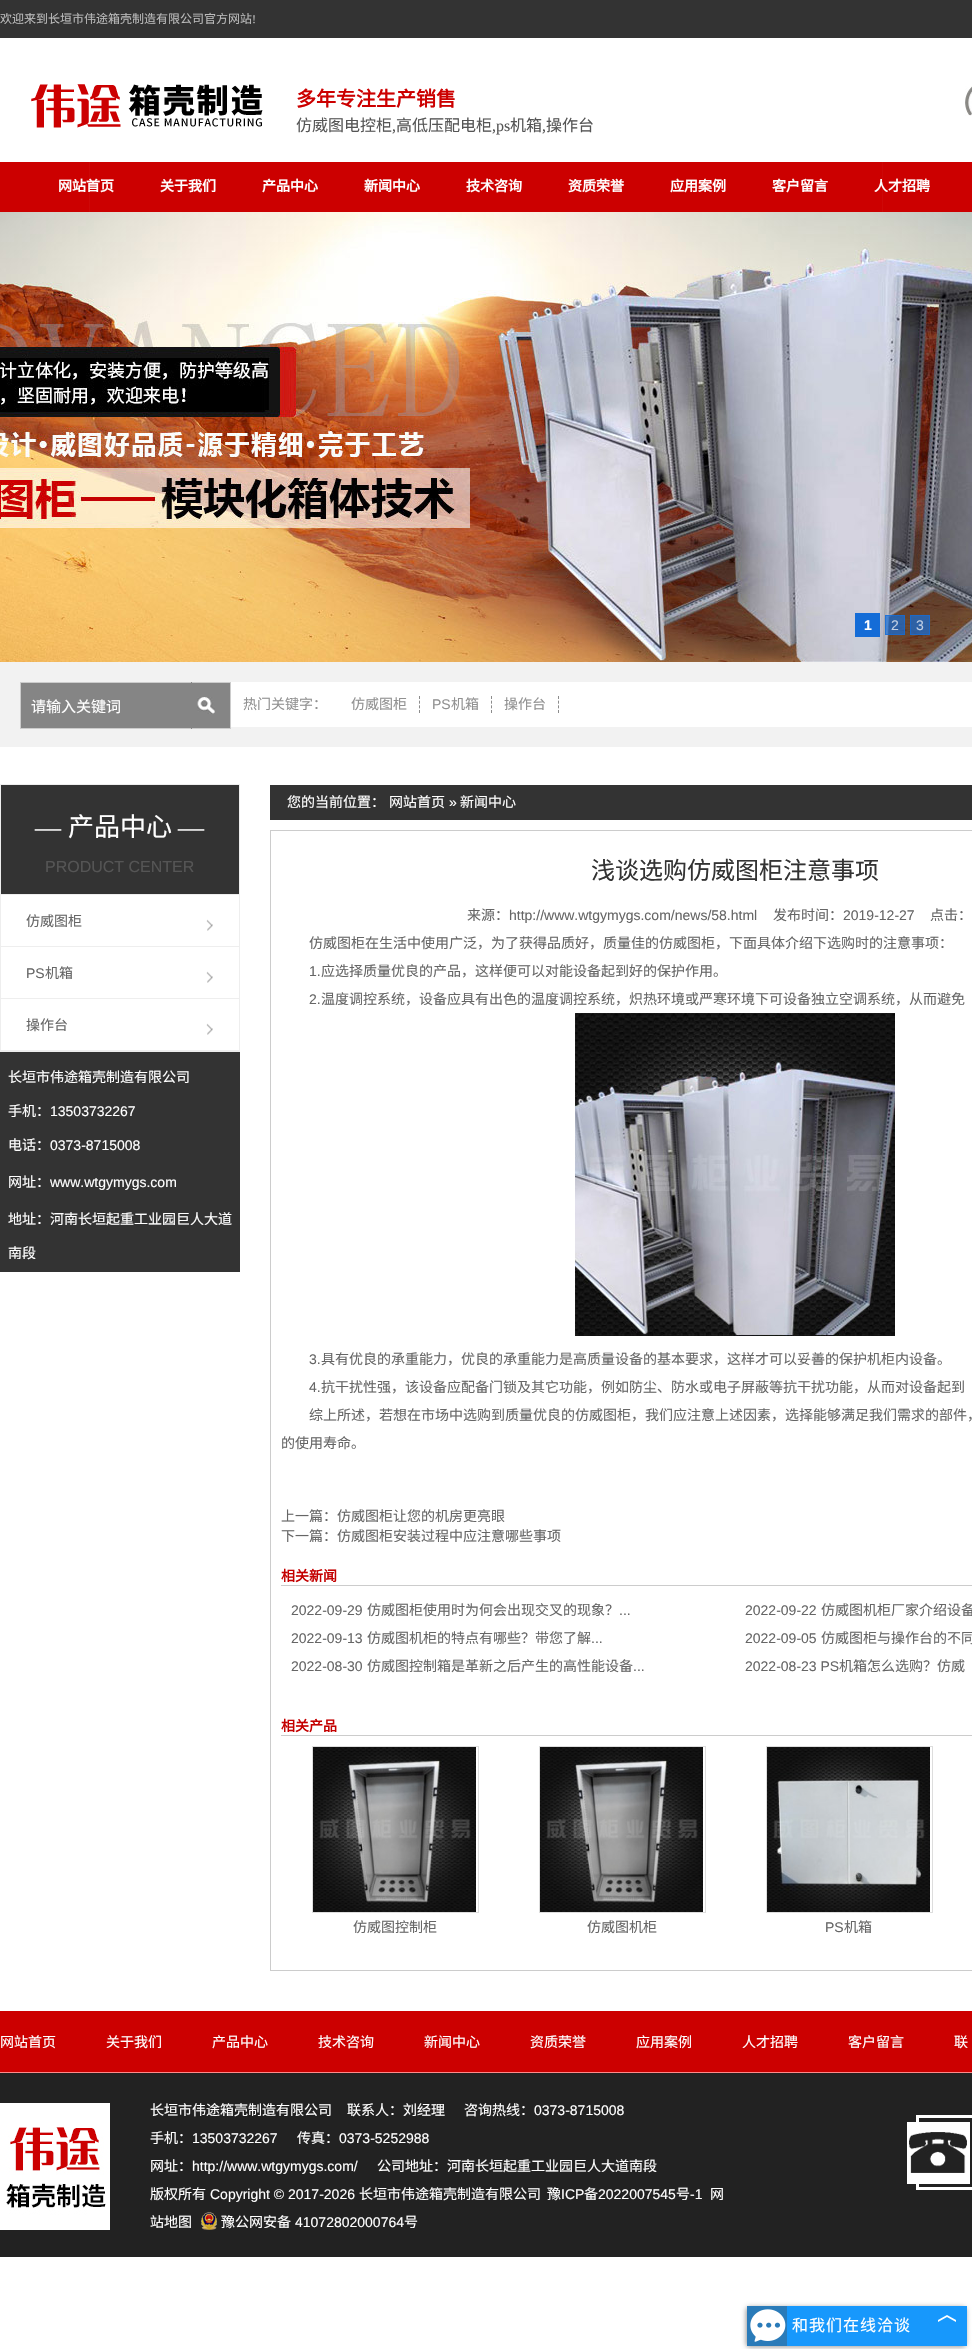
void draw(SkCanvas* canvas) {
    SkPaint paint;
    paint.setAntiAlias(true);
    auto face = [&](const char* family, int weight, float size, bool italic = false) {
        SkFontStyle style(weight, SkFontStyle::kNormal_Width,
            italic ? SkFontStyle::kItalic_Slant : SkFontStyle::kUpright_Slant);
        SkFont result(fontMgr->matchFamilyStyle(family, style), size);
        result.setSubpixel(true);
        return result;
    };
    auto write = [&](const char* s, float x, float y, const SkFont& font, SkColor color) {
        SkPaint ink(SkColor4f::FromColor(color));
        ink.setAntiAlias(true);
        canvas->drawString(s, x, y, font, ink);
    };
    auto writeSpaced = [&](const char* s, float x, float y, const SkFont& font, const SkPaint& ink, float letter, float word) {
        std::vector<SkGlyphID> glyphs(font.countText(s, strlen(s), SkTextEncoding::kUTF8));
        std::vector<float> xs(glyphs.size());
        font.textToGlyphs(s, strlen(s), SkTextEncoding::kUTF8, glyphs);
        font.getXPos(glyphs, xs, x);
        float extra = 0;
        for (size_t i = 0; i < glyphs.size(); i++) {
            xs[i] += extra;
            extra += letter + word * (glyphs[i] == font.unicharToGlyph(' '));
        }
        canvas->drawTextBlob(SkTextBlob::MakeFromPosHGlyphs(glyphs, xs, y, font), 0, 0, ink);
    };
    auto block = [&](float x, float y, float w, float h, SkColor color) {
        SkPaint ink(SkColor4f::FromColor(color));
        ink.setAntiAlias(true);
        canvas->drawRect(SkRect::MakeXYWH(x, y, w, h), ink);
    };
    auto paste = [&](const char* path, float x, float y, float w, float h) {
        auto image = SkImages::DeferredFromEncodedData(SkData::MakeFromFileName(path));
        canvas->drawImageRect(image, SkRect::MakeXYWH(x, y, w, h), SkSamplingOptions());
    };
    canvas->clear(SK_ColorWHITE);
    paste("pic4.png", 0, 162, 972, 500);
    paste("pic1.png", 0, 0, 972, 212);
    auto kFont1 = face("Noto Sans CJK SC", 400, 12);
    write("欢迎来到长垣市伟途箱壳制造有限公司官方网站", 0, 23, kFont1, SkColorSetRGB(187, 187, 187));
    auto kFont2 = face("Liberation Serif", 400, 12);
    write("!", 252, 23, kFont2, SkColorSetRGB(187, 187, 187));
    paste("pic2.png", 31, 84, 232, 44);
    auto kFont3 = face("Noto Sans CJK SC", 700, 20);
    write("多年专注生产销售", 296, 106, kFont3, SkColorSetRGB(204, 0, 0));
    auto kFont4 = face("Noto Sans CJK SC", 400, 16);
    write("仿威图电控柜", 296, 131, kFont4, SkColorSetRGB(85, 85, 85));
    auto kFont5 = face("Liberation Serif", 400, 16);
    write(",", 392, 131, kFont5, SkColorSetRGB(85, 85, 85));
    write("高低压配电柜", 396, 131, kFont4, SkColorSetRGB(85, 85, 85));
    write(",ps", 492, 131, kFont5, SkColorSetRGB(85, 85, 85));
    write("机箱", 510, 131, kFont4, SkColorSetRGB(85, 85, 85));
    write(",", 542, 131, kFont5, SkColorSetRGB(85, 85, 85));
    write("操作台", 546, 131, kFont4, SkColorSetRGB(85, 85, 85));
    paste("pic3.png", 965, 86, 7, 30);
    auto kFont6 = face("Noto Sans CJK SC", 700, 14);
    write("网站首页", 58, 191, kFont6, SK_ColorWHITE);
    write("关于我们", 160, 191, kFont6, SK_ColorWHITE);
    write("产品中心", 262, 191, kFont6, SK_ColorWHITE);
    write("新闻中心", 364, 191, kFont6, SK_ColorWHITE);
    write("技术咨询", 466, 191, kFont6, SK_ColorWHITE);
    write("资质荣誉", 568, 191, kFont6, SK_ColorWHITE);
    write("应用案例", 670, 191, kFont6, SK_ColorWHITE);
    write("客户留言", 772, 191, kFont6, SK_ColorWHITE);
    write("人才招聘", 874, 191, kFont6, SK_ColorWHITE);
    block(855, 613, 25, 24, SkColorSetRGB(20, 108, 215));
    auto kFont7 = face("Liberation Sans", 700, 14);
    write("1", 864, 630, kFont7, SK_ColorWHITE);
    block(885, 615, 20, 20, SkColorSetARGB(179, 20, 108, 215));
    paint.setStyle(SkPaint::kStroke_Style);
    paint.setStrokeWidth(1);
    paint.setColor(SkColorSetARGB(179, 20, 108, 215));
    canvas->drawRect(SkRect::MakeXYWH(885.5f, 615.5f, 19, 19), paint);
    auto kFont8 = face("Liberation Sans", 400, 14);
    write("2", 891, 630, kFont8, SkColorSetRGB(192, 207, 228));
    block(910, 615, 20, 20, SkColorSetARGB(179, 20, 108, 215));
    canvas->drawRect(SkRect::MakeXYWH(910.5f, 615.5f, 19, 19), paint);
    write("3", 916, 630, kFont8, SkColorSetRGB(192, 207, 228));
    block(0, 662, 972, 85, SkColorSetRGB(242, 242, 242));
    block(231, 682, 741, 45, SK_ColorWHITE);
    block(21, 683, 170, 45, SkColorSetRGB(133, 133, 133));
    block(20, 682, 211, 1, SkColorSetRGB(204, 204, 204));
    block(20, 728, 171, 1, SkColorSetRGB(204, 204, 204));
    block(20, 682, 1, 47, SkColorSetRGB(204, 204, 204));
    auto kFont9 = face("Noto Sans CJK SC", 400, 15);
    write("请输入关键词", 31, 712, kFont9, SK_ColorWHITE);
    block(192, 683, 38, 45, SkColorSetRGB(133, 133, 133));
    paste("pic5.png", 197, 697, 18, 17);
    block(230, 682, 1, 47, SkColorSetRGB(204, 204, 204));
    block(191, 728, 40, 1, SkColorSetRGB(204, 204, 204));
    block(191, 682, 1, 47, SkColorSetRGB(133, 133, 133));
    auto kFont10 = face("Noto Sans CJK SC", 400, 14);
    write("热门关键字：", 243, 709, kFont10, SkColorSetRGB(145, 145, 145));
    paint.setColor(SkColorSetRGB(140, 140, 140));
    paint.setPathEffect(SkDashPathEffect::Make({{3, 1.67f}}, 0));
    canvas->drawPath(SkPathBuilder().moveTo(419.5f, 696).lineTo(419.5f, 713).detach(), paint);
    paint.setPathEffect(nullptr);
    write("仿威图柜", 351, 709, kFont10, SkColorSetRGB(145, 145, 145));
    paint.setPathEffect(SkDashPathEffect::Make({{3, 1.67f}}, 0));
    canvas->drawPath(SkPathBuilder().moveTo(491.5f, 696).lineTo(491.5f, 713).detach(), paint);
    paint.setPathEffect(nullptr);
    write("PS", 432, 709, kFont8, SkColorSetRGB(145, 145, 145));
    write("机箱", 451, 709, kFont10, SkColorSetRGB(145, 145, 145));
    paint.setPathEffect(SkDashPathEffect::Make({{3, 1.67f}}, 0));
    canvas->drawPath(SkPathBuilder().moveTo(558.5f, 696).lineTo(558.5f, 713).detach(), paint);
    paint.setPathEffect(nullptr);
    write("操作台", 504, 709, kFont10, SkColorSetRGB(145, 145, 145));
    paint.setColor(SkColorSetRGB(238, 238, 238));
    canvas->drawRect(SkRect::MakeXYWH(0.5f, 784.5f, 239, 267), paint);
    block(1, 785, 238, 109, SkColorSetRGB(51, 51, 51));
    block(1, 894, 238, 1, SkColorSetRGB(238, 238, 238));
    auto kFont11 = face("Liberation Serif", 400, 26);
    write("—", 35, 836, kFont11, SK_ColorWHITE);
    auto kFont12 = face("Noto Sans CJK SC", 400, 26);
    write("产品中心", 68, 836, kFont12, SK_ColorWHITE);
    write("—", 178, 836, kFont11, SK_ColorWHITE);
    auto kFont13 = face("Liberation Sans", 400, 16);
    write("PRODUCT CENTER", 45, 872, kFont13, SkColorSetRGB(85, 85, 85));
    paste("pic6.png", 206, 919, 7, 12);
    block(1, 946, 238, 1, SkColorSetRGB(238, 238, 238));
    write("仿威图柜", 26, 926, kFont10, SkColorSetRGB(102, 102, 102));
    paste("pic6.png", 206, 971, 7, 12);
    block(1, 998, 238, 1, SkColorSetRGB(238, 238, 238));
    write("PS", 26, 978, kFont8, SkColorSetRGB(102, 102, 102));
    write("机箱", 45, 978, kFont10, SkColorSetRGB(102, 102, 102));
    paste("pic6.png", 206, 1023, 7, 12);
    block(1, 1050, 238, 1, SkColorSetRGB(238, 238, 238));
    write("操作台", 26, 1030, kFont10, SkColorSetRGB(102, 102, 102));
    block(0, 1052, 240, 220, SkColorSetRGB(51, 51, 51));
    write("长垣市伟途箱壳制造有限公司", 8, 1082, kFont10, SK_ColorWHITE);
    write("手机：", 8, 1116, kFont10, SK_ColorWHITE);
    write("13503732267", 50, 1116, kFont8, SK_ColorWHITE);
    write("电话：", 8, 1150, kFont10, SK_ColorWHITE);
    write("0373-8715008", 50, 1150, kFont8, SK_ColorWHITE);
    write("网址：", 8, 1187, kFont10, SK_ColorWHITE);
    write("www.wtgymygs.com", 50, 1187, kFont8, SK_ColorWHITE);
    write("地址：河南长垣起重工业园巨人大道", 8, 1224, kFont10, SK_ColorWHITE);
    write("南段", 8, 1258, kFont10, SK_ColorWHITE);
    block(270, 785, 702, 35, SkColorSetRGB(51, 51, 51));
    write("您的当前位置：", 287, 807, kFont10, SK_ColorWHITE);
    write("网站首页", 389, 807, kFont10, SK_ColorWHITE);
    write("»", 449, 807, kFont8, SK_ColorWHITE);
    write("新闻中心", 460, 807, kFont10, SK_ColorWHITE);
    paint.setColor(SkColorSetRGB(204, 204, 204));
    canvas->drawRect(SkRect::MakeXYWH(270.5f, 830.5f, 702, 1140), paint);
    auto kFont14 = face("Noto Sans CJK SC", 400, 24);
    write("浅谈选购仿威图柜注意事项", 591, 879, kFont14, SkColorSetRGB(51, 51, 51));
    write("来源：", 467, 920, kFont10, SkColorSetRGB(102, 102, 102));
    write("http://www.wtgymygs.com/news/58.html", 509, 920, kFont8, SkColorSetRGB(102, 102, 102));
    write("发布时间：", 773, 920, kFont10, SkColorSetRGB(102, 102, 102));
    write("2019-12-27", 843, 920, kFont8, SkColorSetRGB(102, 102, 102));
    write("点击：", 930, 920, kFont10, SkColorSetRGB(102, 102, 102));
    write("仿威图柜在生活中使用广泛，为了获得品质好，质量佳的仿威图柜，下面具体介绍下选购时的注意事项：", 309, 948, kFont10, SkColorSetRGB(102, 102, 102));
    write("1.", 309, 976, kFont8, SkColorSetRGB(102, 102, 102));
    write("应选择质量优良的产品，这样便可以对能设备起到好的保护作用。", 321, 976, kFont10, SkColorSetRGB(102, 102, 102));
    write("2.", 309, 1004, kFont8, SkColorSetRGB(102, 102, 102));
    write("温度调控系统，设备应具有出色的温度调控系统，炽热环境或严寒环境下可设备独立空调系统，从而避免", 321, 1004, kFont10, SkColorSetRGB(102, 102, 102));
    paste("pic7.png", 575, 1013, 320, 323);
    write("3.", 309, 1364, kFont8, SkColorSetRGB(102, 102, 102));
    write("具有优良的承重能力，优良的承重能力是高质量设备的基本要求，这样才可以妥善的保护机柜内设备。", 321, 1364, kFont10, SkColorSetRGB(102, 102, 102));
    write("4.", 309, 1392, kFont8, SkColorSetRGB(102, 102, 102));
    write("抗干扰性强，该设备应配备门锁及其它功能，例如防尘、防水或电子屏蔽等抗干扰功能，从而对设备起到", 321, 1392, kFont10, SkColorSetRGB(102, 102, 102));
    write("综上所述，若想在市场中选购到质量优良的仿威图柜，我们应注意上述因素，选择能够满足我们需求的部件，", 309, 1420, kFont10, SkColorSetRGB(102, 102, 102));
    write("的使用寿命。", 281, 1448, kFont10, SkColorSetRGB(102, 102, 102));
    write("上一篇：仿威图柜让您的机房更亮眼", 281, 1521, kFont10, SkColorSetRGB(102, 102, 102));
    write("下一篇：仿威图柜安装过程中应注意哪些事项", 281, 1541, kFont10, SkColorSetRGB(102, 102, 102));
    block(281, 1585, 691, 1, SkColorSetRGB(204, 204, 204));
    write("相关新闻", 281, 1581, kFont6, SkColorSetRGB(196, 0, 0));
    write("2022-09-29", 291, 1615, kFont8, SkColorSetRGB(102, 102, 102));
    write("仿威图柜使用时为何会出现交叉的现象？", 367, 1615, kFont10, SkColorSetRGB(102, 102, 102));
    write("...", 619, 1615, kFont8, SkColorSetRGB(102, 102, 102));
    write("2022-09-22", 745, 1615, kFont8, SkColorSetRGB(102, 102, 102));
    write("仿威图机柜厂家介绍设备", 821, 1615, kFont10, SkColorSetRGB(102, 102, 102));
    write("2022-09-13", 291, 1643, kFont8, SkColorSetRGB(102, 102, 102));
    write("仿威图机柜的特点有哪些？带您了解", 367, 1643, kFont10, SkColorSetRGB(102, 102, 102));
    write("...", 591, 1643, kFont8, SkColorSetRGB(102, 102, 102));
    write("2022-09-05", 745, 1643, kFont8, SkColorSetRGB(102, 102, 102));
    write("仿威图柜与操作台的不同", 821, 1643, kFont10, SkColorSetRGB(102, 102, 102));
    write("2022-08-30", 291, 1671, kFont8, SkColorSetRGB(102, 102, 102));
    write("仿威图控制箱是革新之后产生的高性能设备", 367, 1671, kFont10, SkColorSetRGB(102, 102, 102));
    write("...", 633, 1671, kFont8, SkColorSetRGB(102, 102, 102));
    write("2022-08-23 PS", 745, 1671, kFont8, SkColorSetRGB(102, 102, 102));
    write("机箱怎么选购？仿威", 839, 1671, kFont10, SkColorSetRGB(102, 102, 102));
    block(281, 1735, 691, 1, SkColorSetRGB(204, 204, 204));
    write("相关产品", 281, 1731, kFont6, SkColorSetRGB(196, 0, 0));
    paint.setColor(SkColorSetRGB(221, 221, 221));
    canvas->drawRect(SkRect::MakeXYWH(312.5f, 1746.5f, 166, 166), paint);
    paste("pic8.png", 313, 1747, 163, 165);
    write("仿威图控制柜", 353, 1932, kFont10, SkColorSetRGB(102, 102, 102));
    canvas->drawRect(SkRect::MakeXYWH(539.5f, 1746.5f, 166, 166), paint);
    paste("pic8.png", 540, 1747, 163, 165);
    write("仿威图机柜", 587, 1932, kFont10, SkColorSetRGB(102, 102, 102));
    canvas->drawRect(SkRect::MakeXYWH(766.5f, 1746.5f, 166, 166), paint);
    paste("pic9.png", 767, 1747, 163, 165);
    write("PS", 825, 1932, kFont8, SkColorSetRGB(102, 102, 102));
    write("机箱", 844, 1932, kFont10, SkColorSetRGB(102, 102, 102));
    block(0, 2073, 972, 184, SkColorSetRGB(34, 34, 34));
    block(0, 2011, 972, 61, SkColorSetRGB(204, 0, 0));
    block(0, 2072, 972, 1, SkColorSetRGB(253, 138, 138));
    write("网站首页", 0, 2047, kFont10, SK_ColorWHITE);
    write("关于我们", 106, 2047, kFont10, SK_ColorWHITE);
    write("产品中心", 212, 2047, kFont10, SK_ColorWHITE);
    write("技术咨询", 318, 2047, kFont10, SK_ColorWHITE);
    write("新闻中心", 424, 2047, kFont10, SK_ColorWHITE);
    write("资质荣誉", 530, 2047, kFont10, SK_ColorWHITE);
    write("应用案例", 636, 2047, kFont10, SK_ColorWHITE);
    write("人才招聘", 742, 2047, kFont10, SK_ColorWHITE);
    write("客户留言", 848, 2047, kFont10, SK_ColorWHITE);
    write("联", 954, 2047, kFont10, SK_ColorWHITE);
    paste("pic10.png", 0, 2103, 110, 127);
    write("长垣市伟途箱壳制造有限公司", 150, 2115, kFont10, SK_ColorWHITE);
    write("联系人：刘经理", 347, 2115, kFont10, SK_ColorWHITE);
    write("咨询热线：", 464, 2115, kFont10, SK_ColorWHITE);
    write("0373-8715008", 534, 2115, kFont8, SK_ColorWHITE);
    write("手机：", 150, 2143, kFont10, SK_ColorWHITE);
    write("13503732267", 192, 2143, kFont8, SK_ColorWHITE);
    write("传真：", 297, 2143, kFont10, SK_ColorWHITE);
    write("0373-5252988", 339, 2143, kFont8, SK_ColorWHITE);
    write("网址：", 150, 2171, kFont10, SK_ColorWHITE);
    write("http://www.wtgymygs.com/", 192, 2171, kFont8, SK_ColorWHITE);
    write("公司地址：河南长垣起重工业园巨人大道南段", 377, 2171, kFont10, SK_ColorWHITE);
    write("版权所有", 150, 2199, kFont10, SK_ColorWHITE);
    write("Copyright © 2017-2026", 210, 2199, kFont8, SK_ColorWHITE);
    write("长垣市伟途箱壳制造有限公司", 359, 2199, kFont10, SK_ColorWHITE);
    write("豫", 547, 2199, kFont10, SK_ColorWHITE);
    write("ICP", 561, 2199, kFont8, SK_ColorWHITE);
    write("备", 584, 2199, kFont10, SK_ColorWHITE);
    write("2022007545", 598, 2199, kFont8, SK_ColorWHITE);
    write("号", 676, 2199, kFont10, SK_ColorWHITE);
    write("-1", 690, 2199, kFont8, SK_ColorWHITE);
    write("网", 710, 2199, kFont10, SK_ColorWHITE);
    write("站地图", 150, 2227, kFont10, SK_ColorWHITE);
    paste("pic11.png", 201, 2212, 16, 18);
    write("豫公网安备", 221, 2227, kFont10, SK_ColorWHITE);
    write("41072802000764", 295, 2227, kFont8, SK_ColorWHITE);
    write("号", 404, 2227, kFont10, SK_ColorWHITE);
    paste("pic12.png", 907, 2115, 65, 75);
    paint.setStyle(SkPaint::kFill_Style);
    paint.setColor(SkColorSetARGB(102, 0, 0, 0));
    paint.setMaskFilter(SkMaskFilter::MakeBlur(kNormal_SkBlurStyle, 2.5f));
    canvas->drawRoundRect(SkRect::MakeXYWH(746, 2307, 220, 40), 4, 4, paint);
    paint.setMaskFilter(nullptr);
    block(787, 2306, 180, 40, SkColorSetRGB(23, 152, 252));
    block(747, 2306, 40, 40, SkColorSetRGB(42, 123, 185));
    paste("pic13.png", 750, 2309, 36, 33);
    paint.setColor(SK_ColorWHITE);
    writeSpaced("和我们在线洽谈", 792, 2331, kFont4, paint, 1, 0);
    paste("pic14.png", 938, 2315, 18, 7);
}
